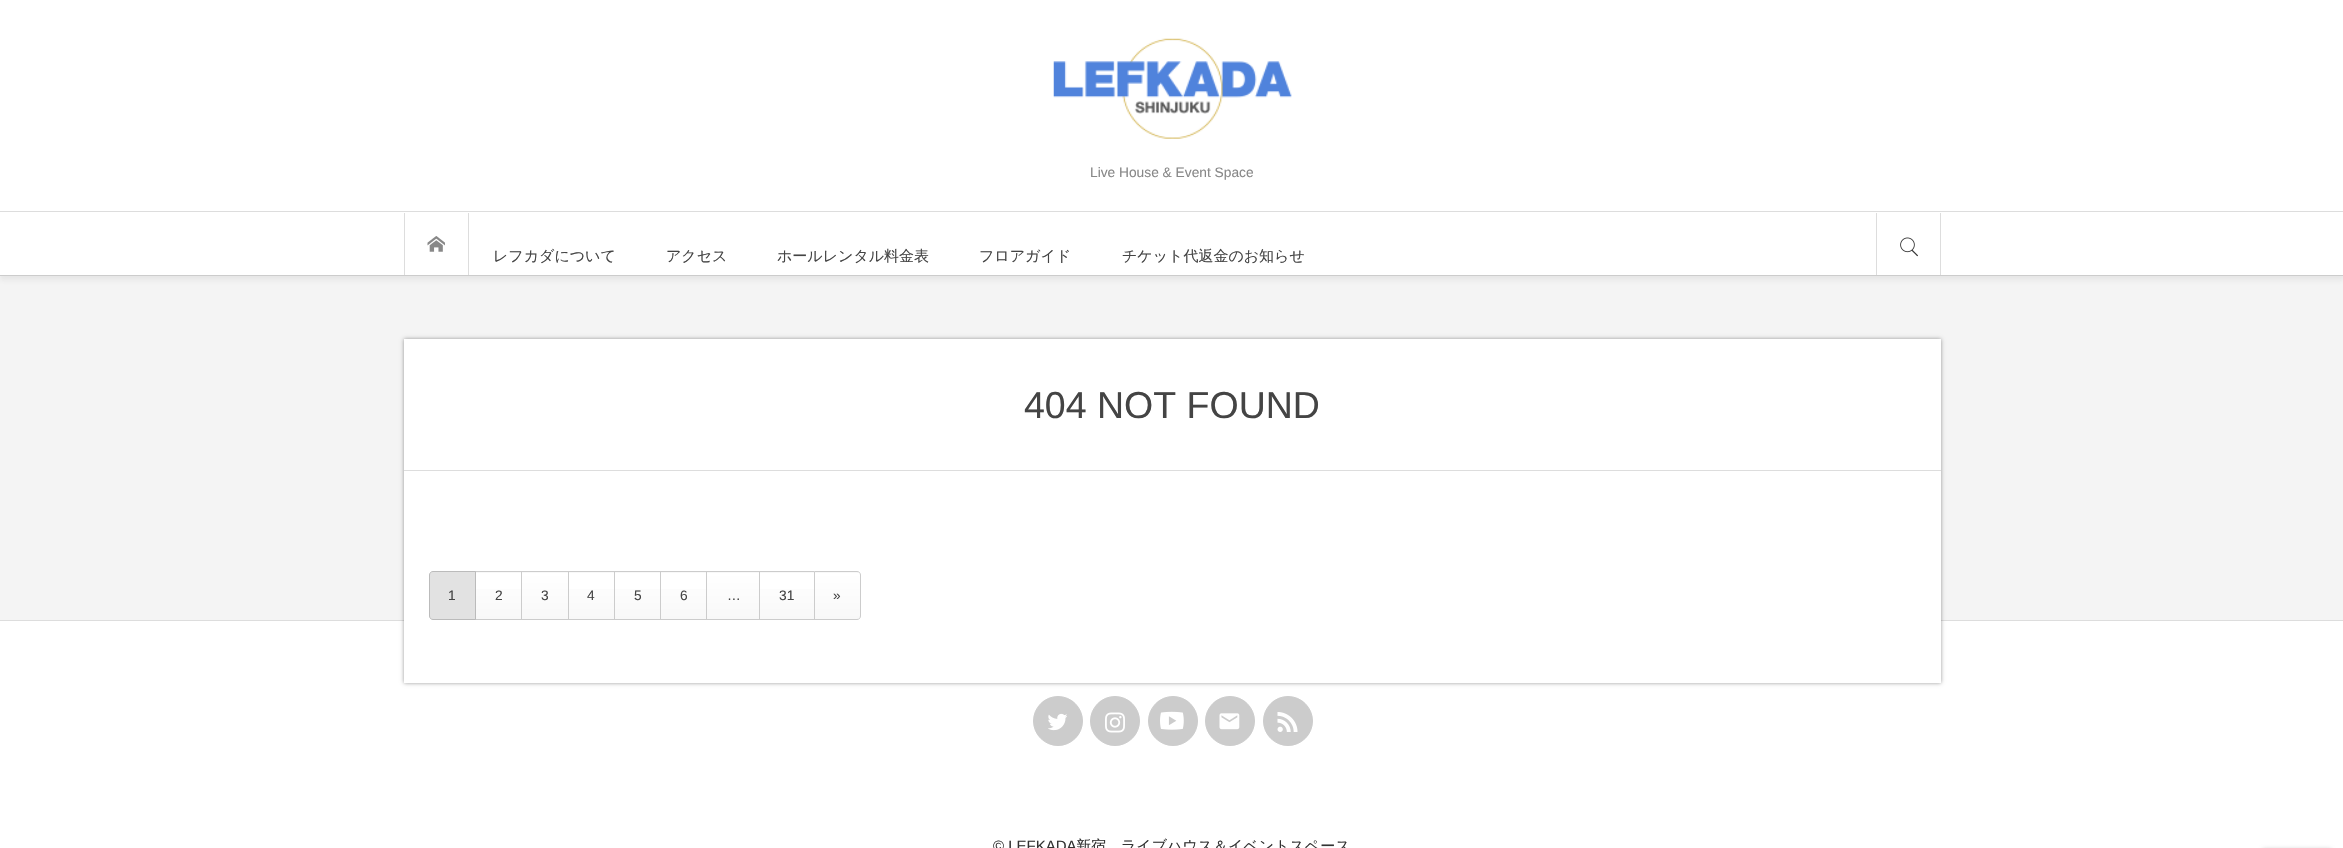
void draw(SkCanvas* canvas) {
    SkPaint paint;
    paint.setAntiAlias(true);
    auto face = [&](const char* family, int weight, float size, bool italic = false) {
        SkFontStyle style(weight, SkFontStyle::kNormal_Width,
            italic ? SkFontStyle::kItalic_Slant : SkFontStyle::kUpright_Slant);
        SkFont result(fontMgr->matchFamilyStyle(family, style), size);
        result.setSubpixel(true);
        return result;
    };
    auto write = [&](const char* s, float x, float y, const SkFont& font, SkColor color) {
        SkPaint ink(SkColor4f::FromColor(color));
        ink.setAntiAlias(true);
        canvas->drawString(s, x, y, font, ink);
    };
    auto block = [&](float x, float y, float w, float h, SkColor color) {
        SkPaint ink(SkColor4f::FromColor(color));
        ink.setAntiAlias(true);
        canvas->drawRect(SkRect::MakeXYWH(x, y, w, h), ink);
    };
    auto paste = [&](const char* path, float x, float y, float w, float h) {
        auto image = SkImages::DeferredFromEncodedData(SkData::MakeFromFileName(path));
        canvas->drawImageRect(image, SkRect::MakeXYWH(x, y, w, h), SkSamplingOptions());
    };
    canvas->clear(SkColorSetRGB(244, 244, 244));
    paint.setColor(SkColorSetARGB(26, 100, 100, 100));
    paint.setMaskFilter(SkMaskFilter::MakeBlur(kNormal_SkBlurStyle, 2.5f));
    canvas->drawRect(SkRect::MakeXYWH(0, 4, 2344, 276), paint);
    paint.setMaskFilter(nullptr);
    block(0, 0, 2343, 275, SK_ColorWHITE);
    block(0, 275, 2343, 1, SkColorSetRGB(204, 204, 204));
    paste("pic1.png", 1053, 38, 239, 101);
    auto kFont1 = face("Liberation Sans", 400, 13.75f);
    write("Live House & Event Space", 1090, 177, kFont1, SkColorSetRGB(136, 136, 136));
    block(0, 211, 2343, 1, SkColorSetRGB(221, 221, 221));
    block(468, 213, 1, 62, SkColorSetRGB(221, 221, 221));
    block(404, 213, 1, 62, SkColorSetRGB(221, 221, 221));
    paste("pic2.png", 427, 236, 18, 16);
    auto kFont2 = face("WenQuanYi Zen Hei", 500, 15);
    write("レフカダについて", 493, 261, kFont2, SkColorSetRGB(68, 68, 68));
    write("アクセス", 666, 261, kFont2, SkColorSetRGB(68, 68, 68));
    write("ホールレンタル料金表", 777, 261, kFont2, SkColorSetRGB(68, 68, 68));
    write("フロアガイド", 979, 261, kFont2, SkColorSetRGB(68, 68, 68));
    write("チケット代返金のお知らせ", 1122, 261, kFont2, SkColorSetRGB(68, 68, 68));
    block(1940, 213, 1, 62, SkColorSetRGB(221, 221, 221));
    block(1876, 213, 1, 62, SkColorSetRGB(221, 221, 221));
    paste("pic3.png", 1900, 237, 18, 20);
    block(0, 621, 2343, 227, SK_ColorWHITE);
    block(0, 620, 2343, 1, SkColorSetRGB(221, 221, 221));
    paint.setColor(SkColorSetARGB(102, 0, 0, 0));
    paint.setMaskFilter(SkMaskFilter::MakeBlur(kNormal_SkBlurStyle, 2));
    canvas->drawRect(SkRect::MakeXYWH(404, 339, 1537, 344), paint);
    paint.setMaskFilter(nullptr);
    block(404, 339, 1537, 344, SK_ColorWHITE);
    block(404, 470, 1537, 1, SkColorSetRGB(221, 221, 221));
    auto kFont3 = face("Liberation Sans", 400, 37.5f);
    write("404 NOT FOUND", 1024, 418, kFont3, SkColorSetRGB(68, 68, 68));
    {
        const SkColor colors[] = {SK_ColorWHITE, SkColorSetRGB(248, 248, 248)};
        const float stops[] = {0, 1};
        const SkPoint ends[] = {{499, 526}, {499, 573}};
        paint.setShader(SkGradientShader::MakeLinear(ends, colors, stops, 2, SkTileMode::kClamp));
        paint.setAlpha(255);
    }
    canvas->drawRect(SkRect::MakeXYWH(475, 572, 48, 1), paint);
    {
        const SkColor colors[] = {SK_ColorWHITE, SkColorSetRGB(248, 248, 248)};
        const float stops[] = {0, 1};
        const SkPoint ends[] = {{499, 573}, {499, 619}};
        paint.setShader(SkGradientShader::MakeLinear(ends, colors, stops, 2, SkTileMode::kClamp));
        paint.setAlpha(255);
    }
    canvas->drawRect(SkRect::MakeXYWH(476, 589, 45, 30), paint);
    paint.setStyle(SkPaint::kStroke_Style);
    paint.setStrokeWidth(1);
    paint.setShader(nullptr);
    paint.setColor(SkColorSetRGB(204, 204, 204));
    canvas->drawRect(SkRect::MakeXYWH(475.5f, 571.5f, 47, 48), paint);
    paint.setStyle(SkPaint::kFill_Style);
    paint.setColor(SkColorSetRGB(226, 226, 226));
    canvas->drawPath(SkPathBuilder().moveTo(433, 571.5f).lineTo(475.5f, 571.5f).lineTo(475.5f, 619.5f).lineTo(433, 619.5f).cubicTo(431, 619.5f, 429.5f, 618, 429.5f, 616).lineTo(429.5f, 575).cubicTo(429.5f, 573, 431, 571.5f, 433, 571.5f).close().detach(), paint);
    paint.setStyle(SkPaint::kStroke_Style);
    paint.setColor(SkColorSetRGB(187, 187, 187));
    canvas->drawPath(SkPathBuilder().moveTo(433, 571.5f).lineTo(475.5f, 571.5f).lineTo(475.5f, 619.5f).lineTo(433, 619.5f).cubicTo(431, 619.5f, 429.5f, 618, 429.5f, 616).lineTo(429.5f, 575).cubicTo(429.5f, 573, 431, 571.5f, 433, 571.5f).close().detach(), paint);
    write("1", 448, 600, kFont1, SkColorSetRGB(68, 68, 68));
    write("2", 495, 600, kFont1, SkColorSetRGB(68, 68, 68));
    paint.setStyle(SkPaint::kFill_Style);
    {
        const SkColor colors[] = {SK_ColorWHITE, SkColorSetRGB(248, 248, 248)};
        const float stops[] = {0, 1};
        const SkPoint ends[] = {{545, 526}, {545, 573}};
        paint.setShader(SkGradientShader::MakeLinear(ends, colors, stops, 2, SkTileMode::kClamp));
        paint.setAlpha(255);
    }
    canvas->drawRect(SkRect::MakeXYWH(521, 572, 48, 1), paint);
    {
        const SkColor colors[] = {SK_ColorWHITE, SkColorSetRGB(248, 248, 248)};
        const float stops[] = {0, 1};
        const SkPoint ends[] = {{545, 573}, {545, 619}};
        paint.setShader(SkGradientShader::MakeLinear(ends, colors, stops, 2, SkTileMode::kClamp));
        paint.setAlpha(255);
    }
    canvas->drawRect(SkRect::MakeXYWH(522, 573, 46, 46), paint);
    paint.setStyle(SkPaint::kStroke_Style);
    paint.setShader(nullptr);
    paint.setColor(SkColorSetRGB(204, 204, 204));
    canvas->drawRect(SkRect::MakeXYWH(521.5f, 571.5f, 47, 48), paint);
    write("3", 541, 600, kFont1, SkColorSetRGB(68, 68, 68));
    paint.setStyle(SkPaint::kFill_Style);
    {
        const SkColor colors[] = {SK_ColorWHITE, SkColorSetRGB(248, 248, 248)};
        const float stops[] = {0, 1};
        const SkPoint ends[] = {{591, 526}, {591, 573}};
        paint.setShader(SkGradientShader::MakeLinear(ends, colors, stops, 2, SkTileMode::kClamp));
        paint.setAlpha(255);
    }
    canvas->drawRect(SkRect::MakeXYWH(568, 572, 47, 1), paint);
    {
        const SkColor colors[] = {SK_ColorWHITE, SkColorSetRGB(248, 248, 248)};
        const float stops[] = {0, 1};
        const SkPoint ends[] = {{591, 573}, {591, 619}};
        paint.setShader(SkGradientShader::MakeLinear(ends, colors, stops, 2, SkTileMode::kClamp));
        paint.setAlpha(255);
    }
    canvas->drawRect(SkRect::MakeXYWH(569, 589, 45, 30), paint);
    paint.setStyle(SkPaint::kStroke_Style);
    paint.setShader(nullptr);
    paint.setColor(SkColorSetRGB(204, 204, 204));
    canvas->drawRect(SkRect::MakeXYWH(568.5f, 571.5f, 46, 48), paint);
    write("4", 587, 600, kFont1, SkColorSetRGB(68, 68, 68));
    paint.setStyle(SkPaint::kFill_Style);
    {
        const SkColor colors[] = {SK_ColorWHITE, SkColorSetRGB(248, 248, 248)};
        const float stops[] = {0, 1};
        const SkPoint ends[] = {{638, 526}, {638, 573}};
        paint.setShader(SkGradientShader::MakeLinear(ends, colors, stops, 2, SkTileMode::kClamp));
        paint.setAlpha(255);
    }
    canvas->drawRect(SkRect::MakeXYWH(614, 572, 47, 1), paint);
    {
        const SkColor colors[] = {SK_ColorWHITE, SkColorSetRGB(248, 248, 248)};
        const float stops[] = {0, 1};
        const SkPoint ends[] = {{638, 573}, {638, 619}};
        paint.setShader(SkGradientShader::MakeLinear(ends, colors, stops, 2, SkTileMode::kClamp));
        paint.setAlpha(255);
    }
    canvas->drawRect(SkRect::MakeXYWH(615, 589, 45, 30), paint);
    paint.setStyle(SkPaint::kStroke_Style);
    paint.setShader(nullptr);
    paint.setColor(SkColorSetRGB(204, 204, 204));
    canvas->drawRect(SkRect::MakeXYWH(614.5f, 571.5f, 46, 48), paint);
    write("5", 634, 600, kFont1, SkColorSetRGB(68, 68, 68));
    paint.setStyle(SkPaint::kFill_Style);
    {
        const SkColor colors[] = {SK_ColorWHITE, SkColorSetRGB(248, 248, 248)};
        const float stops[] = {0, 1};
        const SkPoint ends[] = {{684, 526}, {684, 573}};
        paint.setShader(SkGradientShader::MakeLinear(ends, colors, stops, 2, SkTileMode::kClamp));
        paint.setAlpha(255);
    }
    canvas->drawRect(SkRect::MakeXYWH(660, 572, 48, 1), paint);
    {
        const SkColor colors[] = {SK_ColorWHITE, SkColorSetRGB(248, 248, 248)};
        const float stops[] = {0, 1};
        const SkPoint ends[] = {{684, 573}, {684, 619}};
        paint.setShader(SkGradientShader::MakeLinear(ends, colors, stops, 2, SkTileMode::kClamp));
        paint.setAlpha(255);
    }
    canvas->drawRect(SkRect::MakeXYWH(661, 589, 45, 30), paint);
    paint.setStyle(SkPaint::kStroke_Style);
    paint.setShader(nullptr);
    paint.setColor(SkColorSetRGB(204, 204, 204));
    canvas->drawRect(SkRect::MakeXYWH(660.5f, 571.5f, 47, 48), paint);
    write("6", 680, 600, kFont1, SkColorSetRGB(68, 68, 68));
    paint.setStyle(SkPaint::kFill_Style);
    {
        const SkColor colors[] = {SK_ColorWHITE, SkColorSetRGB(248, 248, 248)};
        const float stops[] = {0, 1};
        const SkPoint ends[] = {{733, 526}, {733, 573}};
        paint.setShader(SkGradientShader::MakeLinear(ends, colors, stops, 2, SkTileMode::kClamp));
        paint.setAlpha(255);
    }
    canvas->drawRect(SkRect::MakeXYWH(706, 572, 54, 1), paint);
    {
        const SkColor colors[] = {SK_ColorWHITE, SkColorSetRGB(248, 248, 248)};
        const float stops[] = {0, 1};
        const SkPoint ends[] = {{733, 573}, {733, 619}};
        paint.setShader(SkGradientShader::MakeLinear(ends, colors, stops, 2, SkTileMode::kClamp));
        paint.setAlpha(255);
    }
    canvas->drawRect(SkRect::MakeXYWH(707, 573, 52, 46), paint);
    paint.setStyle(SkPaint::kStroke_Style);
    paint.setShader(nullptr);
    paint.setColor(SkColorSetRGB(204, 204, 204));
    canvas->drawRect(SkRect::MakeXYWH(706.5f, 571.5f, 53, 48), paint);
    write("…", 727, 600, kFont1, SkColorSetRGB(68, 68, 68));
    paint.setStyle(SkPaint::kFill_Style);
    {
        const SkColor colors[] = {SK_ColorWHITE, SkColorSetRGB(248, 248, 248)};
        const float stops[] = {0, 1};
        const SkPoint ends[] = {{787, 526}, {787, 573}};
        paint.setShader(SkGradientShader::MakeLinear(ends, colors, stops, 2, SkTileMode::kClamp));
        paint.setAlpha(255);
    }
    canvas->drawRect(SkRect::MakeXYWH(759, 572, 56, 1), paint);
    {
        const SkColor colors[] = {SK_ColorWHITE, SkColorSetRGB(248, 248, 248)};
        const float stops[] = {0, 1};
        const SkPoint ends[] = {{787, 573}, {787, 619}};
        paint.setShader(SkGradientShader::MakeLinear(ends, colors, stops, 2, SkTileMode::kClamp));
        paint.setAlpha(255);
    }
    canvas->drawRect(SkRect::MakeXYWH(760, 589, 54, 30), paint);
    paint.setStyle(SkPaint::kStroke_Style);
    paint.setShader(nullptr);
    paint.setColor(SkColorSetRGB(204, 204, 204));
    canvas->drawRect(SkRect::MakeXYWH(759.5f, 571.5f, 55, 48), paint);
    write("31", 779, 600, kFont1, SkColorSetRGB(68, 68, 68));
    canvas->save();
    canvas->clipPath(SkPathBuilder().moveTo(814, 571).lineTo(857, 571).cubicTo(859, 571, 861, 573, 861, 575).lineTo(861, 616).cubicTo(861, 618, 859, 620, 857, 620).lineTo(814, 620).close().detach(), true);
    paint.setStyle(SkPaint::kFill_Style);
    {
        const SkColor colors[] = {SK_ColorWHITE, SkColorSetRGB(248, 248, 248)};
        const float stops[] = {0, 1};
        const SkPoint ends[] = {{838, 526}, {838, 573}};
        paint.setShader(SkGradientShader::MakeLinear(ends, colors, stops, 2, SkTileMode::kClamp));
        paint.setAlpha(255);
    }
    canvas->drawRect(SkRect::MakeXYWH(814, 571, 47, 2), paint);
    {
        const SkColor colors[] = {SK_ColorWHITE, SkColorSetRGB(248, 248, 248)};
        const float stops[] = {0, 1};
        const SkPoint ends[] = {{838, 573}, {838, 619}};
        paint.setShader(SkGradientShader::MakeLinear(ends, colors, stops, 2, SkTileMode::kClamp));
        paint.setAlpha(255);
    }
    canvas->drawRect(SkRect::MakeXYWH(815, 573, 46, 46), paint);
    canvas->restore();
    paint.setStyle(SkPaint::kStroke_Style);
    paint.setShader(nullptr);
    paint.setColor(SkColorSetRGB(204, 204, 204));
    canvas->drawPath(SkPathBuilder().moveTo(814.5f, 571.5f).lineTo(857, 571.5f).cubicTo(859, 571.5f, 860.5f, 573, 860.5f, 575).lineTo(860.5f, 616).cubicTo(860.5f, 618, 859, 619.5f, 857, 619.5f).lineTo(814.5f, 619.5f).close().detach(), paint);
    write("»", 833, 600, kFont1, SkColorSetRGB(68, 68, 68));
    paint.setStyle(SkPaint::kFill_Style);
    canvas->drawCircle(1058, 721, 24.5f, paint);
    paint.setStyle(SkPaint::kStroke_Style);
    canvas->drawCircle(1058, 721, 24.5f, paint);
    paste("pic4.png", 1048, 713, 19, 18);
    paint.setStyle(SkPaint::kFill_Style);
    canvas->drawCircle(1115, 721, 24.5f, paint);
    paint.setStyle(SkPaint::kStroke_Style);
    canvas->drawCircle(1115, 721, 24.5f, paint);
    paste("pic5.png", 1105, 712, 20, 21);
    paint.setStyle(SkPaint::kFill_Style);
    canvas->drawCircle(1173, 721, 24.5f, paint);
    paint.setStyle(SkPaint::kStroke_Style);
    canvas->drawCircle(1173, 721, 24.5f, paint);
    paste("pic6.png", 1160, 711, 24, 19);
    paint.setStyle(SkPaint::kFill_Style);
    canvas->drawCircle(1230, 721, 24.5f, paint);
    paint.setStyle(SkPaint::kStroke_Style);
    canvas->drawCircle(1230, 721, 24.5f, paint);
    paste("pic7.png", 1219, 713, 21, 17);
    paint.setStyle(SkPaint::kFill_Style);
    canvas->drawCircle(1288, 721, 24.5f, paint);
    paint.setStyle(SkPaint::kStroke_Style);
    canvas->drawCircle(1288, 721, 24.5f, paint);
    paste("pic8.png", 1277, 712, 21, 20);
    auto kFont4 = face("Liberation Sans", 400, 15);
    write("© LEFKADA", 993, 851, kFont4, SkColorSetRGB(51, 51, 51));
    write("新宿　ライブハウス＆イベントスペース", 1076, 851, kFont2, SkColorSetRGB(51, 51, 51));
    paint.setStyle(SkPaint::kFill_Style);
    paint.setColor(SkColorSetARGB(51, 0, 0, 0));
    paint.setMaskFilter(SkMaskFilter::MakeBlur(kNormal_SkBlurStyle, 2));
    canvas->drawRect(SkRect::MakeXYWH(2263, 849, 68, 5), paint);
    paint.setMaskFilter(nullptr);
}
